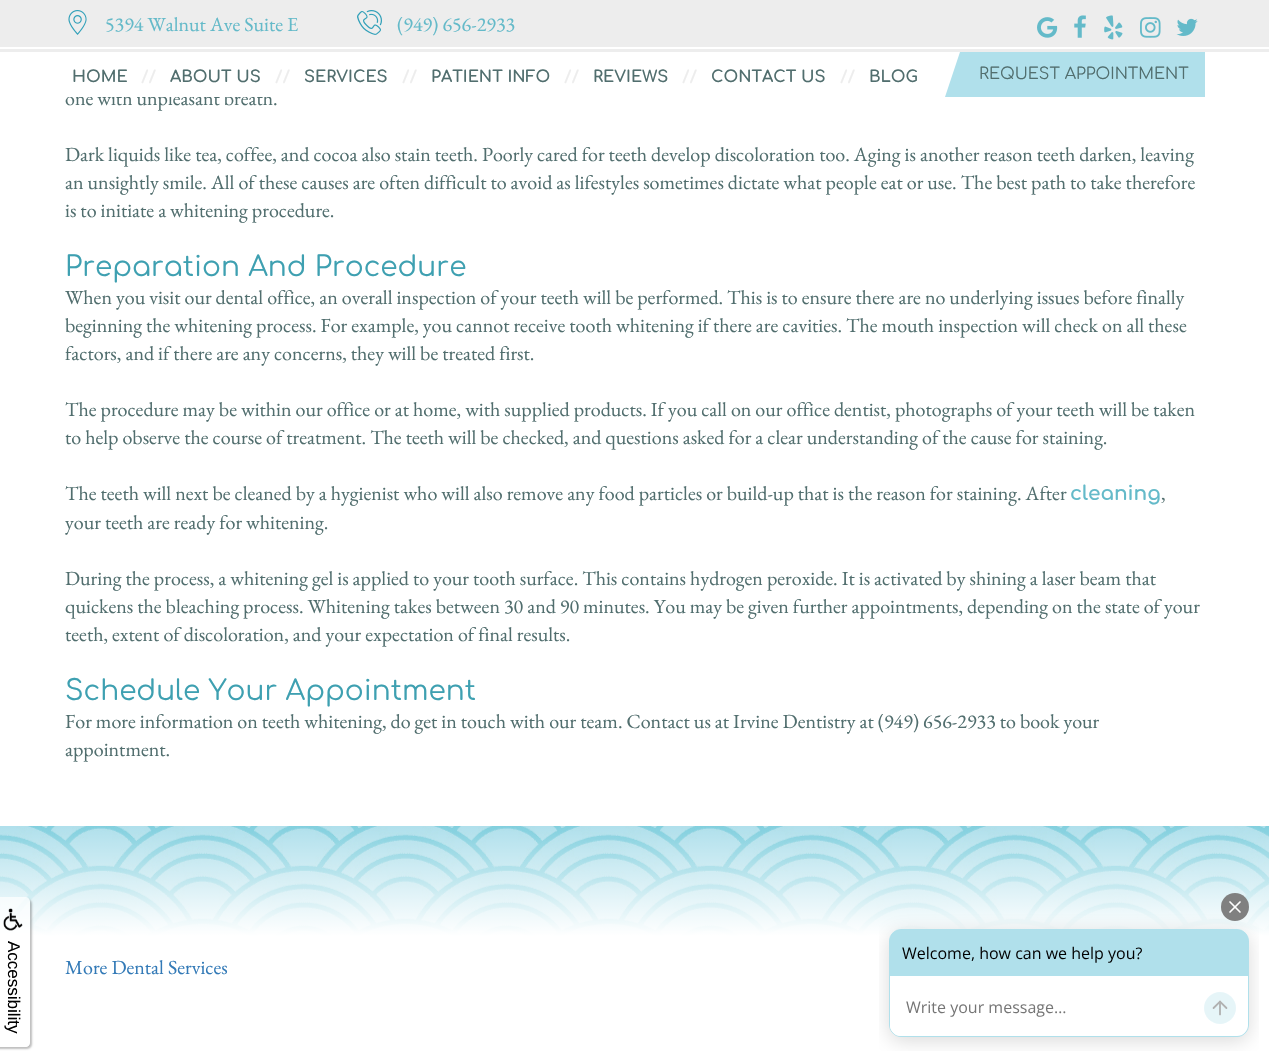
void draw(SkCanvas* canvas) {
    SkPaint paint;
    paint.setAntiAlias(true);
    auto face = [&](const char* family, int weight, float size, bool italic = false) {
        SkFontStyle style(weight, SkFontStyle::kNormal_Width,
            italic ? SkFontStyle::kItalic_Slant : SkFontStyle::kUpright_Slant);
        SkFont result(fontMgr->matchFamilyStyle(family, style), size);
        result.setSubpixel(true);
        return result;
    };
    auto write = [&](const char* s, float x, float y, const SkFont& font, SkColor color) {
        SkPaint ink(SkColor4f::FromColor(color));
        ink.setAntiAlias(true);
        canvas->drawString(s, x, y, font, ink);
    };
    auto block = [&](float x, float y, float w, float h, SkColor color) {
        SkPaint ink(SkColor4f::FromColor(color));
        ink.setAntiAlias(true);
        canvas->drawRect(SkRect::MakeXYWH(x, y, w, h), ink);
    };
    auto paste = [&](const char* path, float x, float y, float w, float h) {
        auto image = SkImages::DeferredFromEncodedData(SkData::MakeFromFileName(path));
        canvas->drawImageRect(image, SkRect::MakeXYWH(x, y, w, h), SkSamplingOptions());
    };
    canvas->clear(SK_ColorWHITE);
    auto kFont1 = face("EB Garamond", 400, 20);
    write("one with unpleasant breath.", 65, 105, kFont1, SkColorSetRGB(81, 110, 110));
    block(68, 90, 202, 7, SK_ColorWHITE);
    block(0, 0, 1269, 52, SkColorSetRGB(237, 237, 237));
    paste("pic1.png", 68, 10, 19, 25);
    write("5394 Walnut Ave Suite E", 105, 31, kFont1, SkColorSetRGB(100, 186, 201));
    paste("pic2.png", 357, 10, 25, 25);
    write("(949) 656-2933", 397, 31, kFont1, SkColorSetRGB(100, 186, 201));
    paste("pic3.png", 1037, 17, 21, 21);
    paste("pic4.png", 1074, 15, 12, 23);
    paste("pic5.png", 1104, 15, 19, 25);
    paste("pic6.png", 1140, 17, 21, 21);
    paste("pic7.png", 1176, 18, 22, 18);
    block(0, 47, 1269, 2, SK_ColorWHITE);
    auto kFont2 = face("Comfortaa", 700, 16);
    write("HOME", 72, 82, kFont2, SkColorSetRGB(81, 110, 110));
    write("//", 141, 82, kFont2, SkColorSetRGB(237, 237, 237));
    write("ABOUT US", 170, 82, kFont2, SkColorSetRGB(81, 110, 110));
    write("//", 275, 82, kFont2, SkColorSetRGB(237, 237, 237));
    write("SERVICES", 304, 82, kFont2, SkColorSetRGB(81, 110, 110));
    write("//", 402, 82, kFont2, SkColorSetRGB(237, 237, 237));
    write("PATIENT INFO", 431, 82, kFont2, SkColorSetRGB(81, 110, 110));
    write("//", 564, 82, kFont2, SkColorSetRGB(237, 237, 237));
    write("REVIEWS", 593, 82, kFont2, SkColorSetRGB(81, 110, 110));
    write("//", 682, 82, kFont2, SkColorSetRGB(237, 237, 237));
    write("CONTACT US", 711, 82, kFont2, SkColorSetRGB(81, 110, 110));
    write("//", 840, 82, kFont2, SkColorSetRGB(237, 237, 237));
    write("BLOG", 869, 82, kFont2, SkColorSetRGB(81, 110, 110));
    block(965, 52, 240, 45, SkColorSetRGB(176, 224, 235));
    paint.setColor(SkColorSetRGB(176, 224, 235));
    canvas->drawPath(SkPathBuilder().moveTo(960, 52).lineTo(980, 52).lineTo(965, 97).lineTo(945, 97).close().detach(), paint);
    auto kFont3 = face("Comfortaa", 400, 16);
    write("REQUEST APPOINTMENT", 979, 79, kFont3, SkColorSetRGB(81, 110, 110));
    write("Dark liquids like tea, coffee, and cocoa also stain teeth. Poorly cared for teeth develop discoloration too. Aging is another reason teeth darken, leaving", 65, 161, kFont1, SkColorSetRGB(81, 110, 110));
    write("an unsightly smile. All of these causes are often difficult to avoid as lifestyles sometimes dictate what people eat or use. The best path to take therefore", 65, 189, kFont1, SkColorSetRGB(81, 110, 110));
    write("is to initiate a whitening procedure.", 65, 217, kFont1, SkColorSetRGB(81, 110, 110));
    auto kFont4 = face("Comfortaa", 400, 28);
    write("Preparation And Procedure", 65, 276, kFont4, SkColorSetRGB(62, 160, 177));
    write("When you visit our dental office, an overall inspection of your teeth will be performed. This is to ensure there are no underlying issues before finally", 65, 304, kFont1, SkColorSetRGB(81, 110, 110));
    write("beginning the whitening process. For example, you cannot receive tooth whitening if there are cavities. The mouth inspection will check on all these", 65, 332, kFont1, SkColorSetRGB(81, 110, 110));
    write("factors, and if there are any concerns, they will be treated first.", 65, 360, kFont1, SkColorSetRGB(81, 110, 110));
    write("The procedure may be within our office or at home, with supplied products. If you call on our office dentist, photographs of your teeth will be taken", 65, 416, kFont1, SkColorSetRGB(81, 110, 110));
    write("to help observe the course of treatment. The teeth will be checked, and questions asked for a clear understanding of the cause for staining.", 65, 444, kFont1, SkColorSetRGB(81, 110, 110));
    write("The teeth will next be cleaned by a hygienist who will also remove any food particles or build-up that is the reason for staining. After", 65, 500, kFont1, SkColorSetRGB(81, 110, 110));
    auto kFont5 = face("Comfortaa", 700, 20);
    write("cleaning", 1070, 500, kFont5, SkColorSetRGB(100, 186, 201));
    write(",", 1161, 500, kFont1, SkColorSetRGB(81, 110, 110));
    write("your teeth are ready for whitening.", 65, 529, kFont1, SkColorSetRGB(81, 110, 110));
    write("During the process, a whitening gel is applied to your tooth surface. This contains hydrogen peroxide. It is activated by shining a laser beam that", 65, 585, kFont1, SkColorSetRGB(81, 110, 110));
    write("quickens the bleaching process. Whitening takes between 30 and 90 minutes. You may be given further appointments, depending on the state of your", 65, 613, kFont1, SkColorSetRGB(81, 110, 110));
    write("teeth, extent of discoloration, and your expectation of final results.", 65, 641, kFont1, SkColorSetRGB(81, 110, 110));
    write("Schedule Your Appointment", 65, 700, kFont4, SkColorSetRGB(62, 160, 177));
    write("For more information on teeth whitening, do get in touch with our team. Contact us at Irvine Dentistry at (949) 656-2933 to book your", 65, 728, kFont1, SkColorSetRGB(81, 110, 110));
    write("appointment.", 65, 756, kFont1, SkColorSetRGB(81, 110, 110));
    paste("pic9.png", 0, 826, 1269, 231);
    canvas->save();
    canvas->clipPath(SkPathBuilder(SkPathFillType::kEvenOdd).moveTo(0, 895).lineTo(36, 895).lineTo(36, 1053).lineTo(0, 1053).close().moveTo(-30, 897).lineTo(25, 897).cubicTo(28, 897, 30, 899, 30, 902).lineTo(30, 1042).cubicTo(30, 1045, 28, 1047, 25, 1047).lineTo(-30, 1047).close().detach(), true);
    paint.setColor(SkColorSetARGB(64, 0, 0, 0));
    paint.setMaskFilter(SkMaskFilter::MakeBlur(kNormal_SkBlurStyle, 1));
    canvas->drawRoundRect(SkRect::MakeXYWH(-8, 899, 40, 150), 5, 5, paint);
    paint.setMaskFilter(nullptr);
    canvas->restore();
    paint.setColor(SkColorSetARGB(179, 255, 255, 255));
    canvas->drawPath(SkPathBuilder().moveTo(-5, 897).lineTo(25, 897).cubicTo(28, 897, 30, 899, 30, 902).lineTo(30, 1042).cubicTo(30, 1045, 28, 1047, 25, 1047).lineTo(-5, 1047).close().detach(), paint);
    paste("pic8.png", 3, 908, 20, 23);
    auto kFont6 = face("Liberation Sans", 400, 17);
    canvas->save();
    canvas->rotate(90, 8, 941);
    write("Accessibility", 8, 941, kFont6, SK_ColorBLACK);
    canvas->restore();
    write("More Dental Services", 65, 974, kFont1, SkColorSetRGB(51, 122, 183));
    paste("pic10.png", 879, 893, 380, 158);
}
